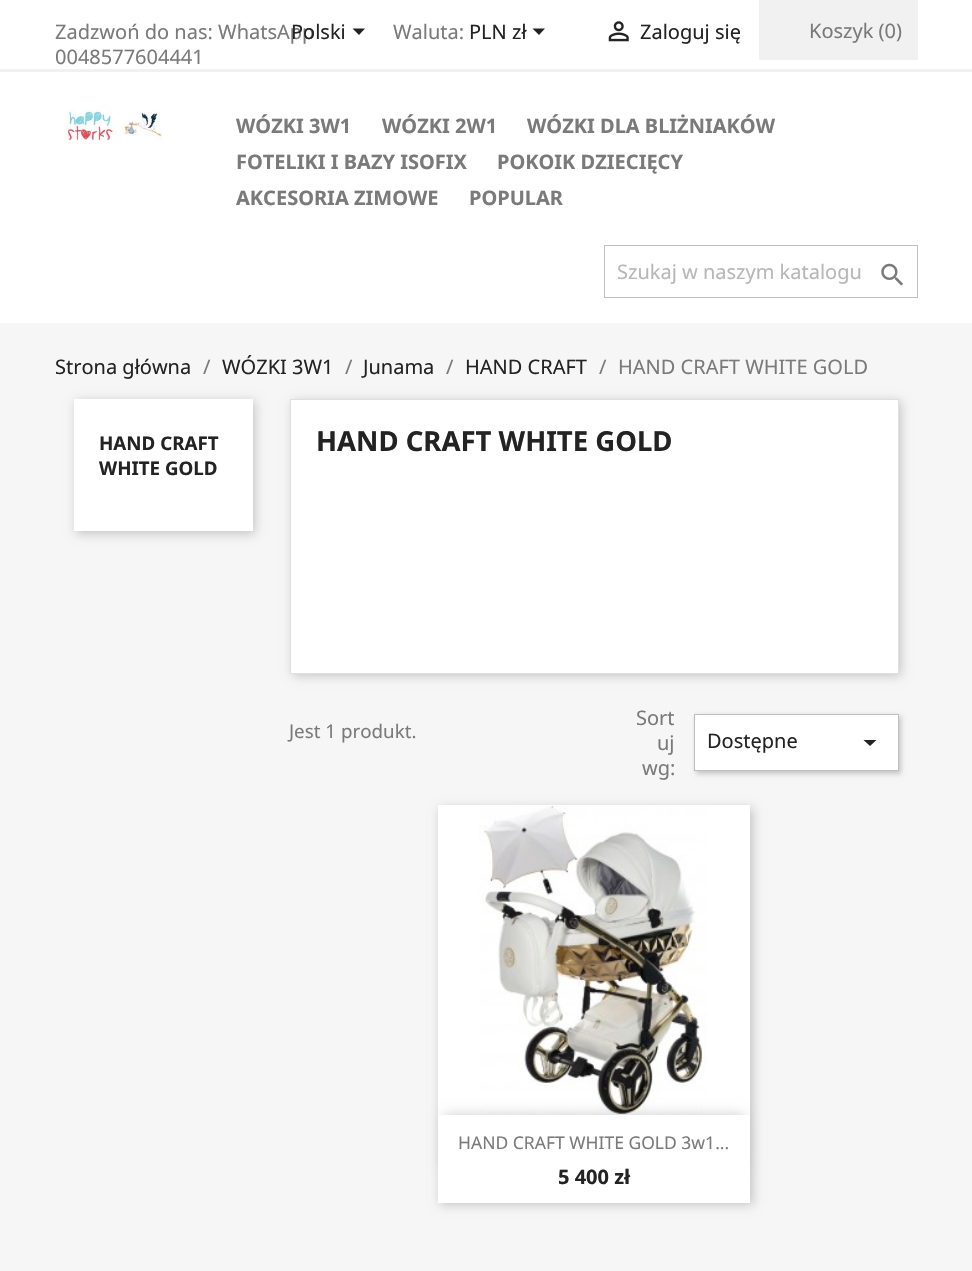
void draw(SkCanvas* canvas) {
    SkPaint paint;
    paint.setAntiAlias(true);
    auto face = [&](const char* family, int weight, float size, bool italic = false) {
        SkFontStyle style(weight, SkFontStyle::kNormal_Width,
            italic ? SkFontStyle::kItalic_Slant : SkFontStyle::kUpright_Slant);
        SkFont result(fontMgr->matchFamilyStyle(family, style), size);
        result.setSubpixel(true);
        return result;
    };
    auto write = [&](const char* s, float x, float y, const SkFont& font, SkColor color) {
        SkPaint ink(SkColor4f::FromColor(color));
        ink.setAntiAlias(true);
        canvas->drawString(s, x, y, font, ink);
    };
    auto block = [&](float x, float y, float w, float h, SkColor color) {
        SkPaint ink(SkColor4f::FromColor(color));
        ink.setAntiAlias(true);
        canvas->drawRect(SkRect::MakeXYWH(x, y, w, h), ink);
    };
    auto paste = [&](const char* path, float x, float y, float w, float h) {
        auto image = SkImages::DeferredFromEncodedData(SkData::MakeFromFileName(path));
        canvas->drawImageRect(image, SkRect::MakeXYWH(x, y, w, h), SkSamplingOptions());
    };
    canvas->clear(SK_ColorWHITE);
    block(0, 69, 972, 3, SkColorSetRGB(241, 241, 241));
    auto kFont1 = face("Noto Sans", 400, 20);
    write("Zadzwoń do nas: WhatsApp", 55, 39, kFont1, SkColorSetRGB(122, 122, 122));
    write("0048577604441", 55, 64, kFont1, SkColorSetRGB(122, 122, 122));
    write("Polski", 291, 39, kFont1, SkColorSetRGB(35, 35, 35));
    paint.setColor(SkColorSetRGB(35, 35, 35));
    canvas->drawPath(SkPathBuilder().moveTo(352.5f, 28.5f).lineTo(365, 28.5f).lineTo(359, 35).close().detach(), paint);
    write("Waluta:", 393, 39, kFont1, SkColorSetRGB(122, 122, 122));
    write("PLN zł", 469, 39, kFont1, SkColorSetRGB(35, 35, 35));
    canvas->drawPath(SkPathBuilder().moveTo(532.5f, 28.5f).lineTo(545, 28.5f).lineTo(539, 35).close().detach(), paint);
    paste("pic1.png", 608, 21, 21, 21);
    write("Zaloguj się", 640, 39, kFont1, SkColorSetRGB(35, 35, 35));
    block(759, 0, 159, 60, SkColorSetRGB(241, 241, 241));
    write("Koszyk (0)", 809, 38, kFont1, SkColorSetRGB(122, 122, 122));
    paste("pic2.png", 65, 109, 98, 32);
    auto kFont2 = face("Noto Sans", 700, 20);
    write("WÓZKI 3W1", 236, 133, kFont2, SkColorSetRGB(122, 122, 122));
    write("WÓZKI 2W1", 382, 133, kFont2, SkColorSetRGB(122, 122, 122));
    write("WÓZKI DLA BLIŻNIAKÓW", 527, 133, kFont2, SkColorSetRGB(122, 122, 122));
    write("FOTELIKI I BAZY ISOFIX", 236, 169, kFont2, SkColorSetRGB(122, 122, 122));
    write("POKOIK DZIECIĘCY", 497, 169, kFont2, SkColorSetRGB(122, 122, 122));
    write("AKCESORIA ZIMOWE", 236, 205, kFont2, SkColorSetRGB(122, 122, 122));
    write("POPULAR", 469, 205, kFont2, SkColorSetRGB(122, 122, 122));
    paint.setStyle(SkPaint::kStroke_Style);
    paint.setStrokeWidth(1);
    paint.setColor(SkColorSetRGB(191, 191, 191));
    canvas->drawRect(SkRect::MakeXYWH(604.5f, 245.5f, 313, 52), paint);
    write("Szukaj w naszym katalogu", 617, 279, kFont1, SkColorSetRGB(183, 183, 183));
    paste("pic3.png", 881, 263, 22, 23);
    block(0, 323, 972, 948, SkColorSetRGB(246, 246, 246));
    write("Strona główna", 55, 374, kFont1, SkColorSetRGB(35, 35, 35));
    write("/", 203, 374, kFont1, SkColorSetRGB(122, 122, 122));
    write("WÓZKI 3W1", 222, 374, kFont1, SkColorSetRGB(35, 35, 35));
    write("/", 345, 374, kFont1, SkColorSetRGB(122, 122, 122));
    write("Junama", 363, 374, kFont1, SkColorSetRGB(35, 35, 35));
    write("/", 446, 374, kFont1, SkColorSetRGB(122, 122, 122));
    write("HAND CRAFT", 465, 374, kFont1, SkColorSetRGB(35, 35, 35));
    write("/", 599, 374, kFont1, SkColorSetRGB(122, 122, 122));
    write("HAND CRAFT WHITE GOLD", 618, 374, kFont1, SkColorSetRGB(122, 122, 122));
    paint.setStyle(SkPaint::kFill_Style);
    paint.setColor(SkColorSetARGB(51, 0, 0, 0));
    paint.setMaskFilter(SkMaskFilter::MakeBlur(kNormal_SkBlurStyle, 5));
    canvas->drawRect(SkRect::MakeXYWH(76, 401, 179, 133), paint);
    paint.setMaskFilter(nullptr);
    block(74, 399, 179, 132, SK_ColorWHITE);
    auto kFont3 = face("Noto Sans", 700, 18.75f);
    write("HAND CRAFT", 99, 450, kFont3, SkColorSetRGB(35, 35, 35));
    write("WHITE GOLD", 99, 475, kFont3, SkColorSetRGB(35, 35, 35));
    paint.setMaskFilter(SkMaskFilter::MakeBlur(kNormal_SkBlurStyle, 5));
    canvas->drawRect(SkRect::MakeXYWH(293, 401, 608, 275), paint);
    paint.setMaskFilter(nullptr);
    paint.setColor(SK_ColorWHITE);
    canvas->drawRect(SkRect::MakeXYWH(290.5f, 399.5f, 608, 274), paint);
    paint.setStyle(SkPaint::kStroke_Style);
    paint.setColor(SkColorSetRGB(223, 223, 223));
    canvas->drawRect(SkRect::MakeXYWH(290.5f, 399.5f, 608, 274), paint);
    auto kFont4 = face("Noto Sans", 700, 27.5f);
    write("HAND CRAFT WHITE GOLD", 316, 451, kFont4, SkColorSetRGB(35, 35, 35));
    auto kFont5 = face("Noto Sans", 400, 18.75f);
    write("Jest 1 produkt.", 289, 738, kFont5, SkColorSetRGB(122, 122, 122));
    write("Sort", 636, 725, kFont1, SkColorSetRGB(122, 122, 122));
    write("uj", 657, 750, kFont1, SkColorSetRGB(122, 122, 122));
    write("wg:", 642, 775, kFont1, SkColorSetRGB(122, 122, 122));
    paint.setStyle(SkPaint::kFill_Style);
    paint.setColor(SkColorSetARGB(51, 0, 0, 0));
    paint.setMaskFilter(SkMaskFilter::MakeBlur(kNormal_SkBlurStyle, 2.5f));
    canvas->drawRect(SkRect::MakeXYWH(696, 716, 205, 58), paint);
    paint.setMaskFilter(nullptr);
    paint.setColor(SK_ColorWHITE);
    canvas->drawRect(SkRect::MakeXYWH(694.5f, 714.5f, 204, 56), paint);
    paint.setStyle(SkPaint::kStroke_Style);
    paint.setColor(SkColorSetRGB(191, 191, 191));
    canvas->drawRect(SkRect::MakeXYWH(694.5f, 714.5f, 204, 56), paint);
    write("Dostępne", 707, 748, kFont1, SkColorSetRGB(35, 35, 35));
    paint.setStyle(SkPaint::kFill_Style);
    paint.setColor(SkColorSetRGB(35, 35, 35));
    canvas->drawPath(SkPathBuilder().moveTo(863.5f, 740).lineTo(876.5f, 740).lineTo(870, 746).close().detach(), paint);
    paint.setColor(SkColorSetARGB(51, 0, 0, 0));
    paint.setMaskFilter(SkMaskFilter::MakeBlur(kNormal_SkBlurStyle, 5));
    canvas->drawRect(SkRect::MakeXYWH(440, 808, 313, 397), paint);
    paint.setMaskFilter(nullptr);
    block(438, 805, 312, 310, SK_ColorWHITE);
    paste("pic4.png", 479, 805, 228, 310);
    paint.setMaskFilter(SkMaskFilter::MakeBlur(kNormal_SkBlurStyle, 6));
    canvas->drawRect(SkRect::MakeXYWH(444, 1115, 300, 50), paint);
    paint.setMaskFilter(nullptr);
    block(438, 1115, 312, 88, SK_ColorWHITE);
    auto kFont6 = face("Noto Sans", 400, 17.5f);
    write("HAND CRAFT WHITE GOLD 3w1...", 458, 1149, kFont6, SkColorSetRGB(122, 122, 122));
    write("5 400 zł", 558, 1184, kFont2, SkColorSetRGB(35, 35, 35));
}
